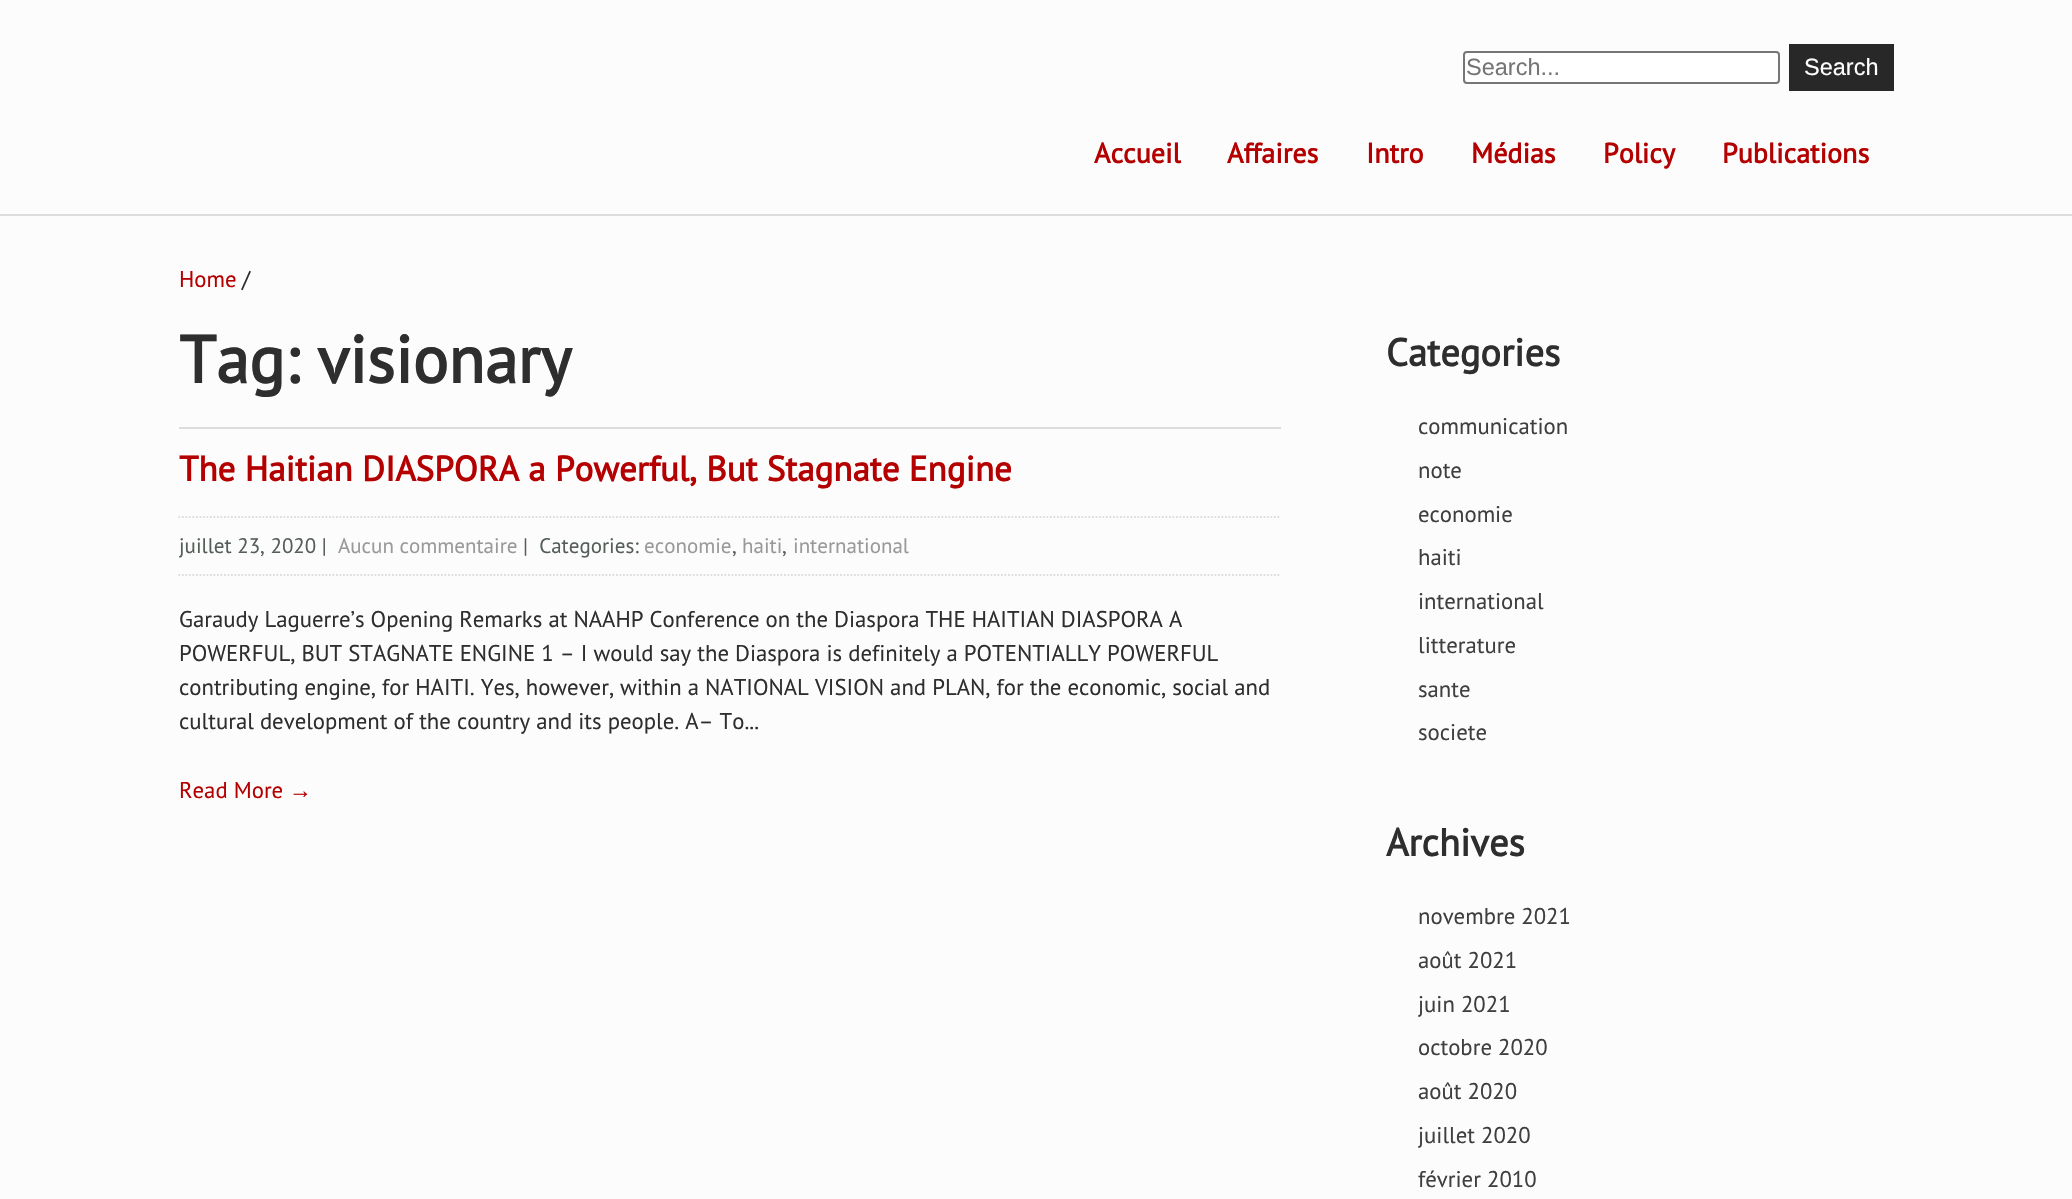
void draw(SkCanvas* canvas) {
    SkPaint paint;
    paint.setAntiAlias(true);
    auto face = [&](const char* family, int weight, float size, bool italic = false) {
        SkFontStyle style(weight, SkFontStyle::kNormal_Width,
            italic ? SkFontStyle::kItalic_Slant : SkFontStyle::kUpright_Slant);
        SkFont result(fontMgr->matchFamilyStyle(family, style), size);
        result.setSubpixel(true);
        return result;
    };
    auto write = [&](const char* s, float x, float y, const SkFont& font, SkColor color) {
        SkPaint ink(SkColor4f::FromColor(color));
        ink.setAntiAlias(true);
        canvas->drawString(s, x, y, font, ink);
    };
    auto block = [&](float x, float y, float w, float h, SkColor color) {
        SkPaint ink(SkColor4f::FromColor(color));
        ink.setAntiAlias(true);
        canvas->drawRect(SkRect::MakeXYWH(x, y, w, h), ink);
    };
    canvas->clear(SkColorSetRGB(252, 252, 252));
    block(0, 214, 2072, 2, SkColorSetRGB(221, 221, 221));
    paint.setColor(SK_ColorWHITE);
    canvas->drawRoundRect(SkRect::MakeXYWH(1464, 52, 315, 31), 3, 3, paint);
    paint.setStyle(SkPaint::kStroke_Style);
    paint.setStrokeWidth(2);
    paint.setColor(SkColorSetRGB(118, 118, 118));
    canvas->drawRoundRect(SkRect::MakeXYWH(1464, 52, 315, 31), 3, 3, paint);
    auto kFont1 = face("Liberation Sans", 400, 23.5f);
    write("Search...", 1466, 75, kFont1, SkColorSetRGB(117, 117, 117));
    block(1789, 44, 105, 47, SkColorSetRGB(40, 40, 40));
    write("Search", 1804, 75, kFont1, SK_ColorWHITE);
    auto kFont2 = face("PT Sans", 700, 28);
    write("Accueil", 1094, 163, kFont2, SkColorSetRGB(180, 0, 0));
    write("Affaires", 1227, 163, kFont2, SkColorSetRGB(180, 0, 0));
    write("Intro", 1366, 163, kFont2, SkColorSetRGB(180, 0, 0));
    write("Médias", 1471, 163, kFont2, SkColorSetRGB(180, 0, 0));
    write("Policy", 1603, 163, kFont2, SkColorSetRGB(180, 0, 0));
    write("Publications", 1722, 163, kFont2, SkColorSetRGB(180, 0, 0));
    auto kFont3 = face("PT Sans", 400, 22.75f);
    write("Home", 179, 287, kFont3, SkColorSetRGB(180, 0, 0));
    write("/", 242, 287, kFont3, SkColorSetRGB(46, 46, 46));
    auto kFont4 = face("PT Sans", 700, 66.5f);
    write("Tag: visionary", 179, 383, kFont4, SkColorSetRGB(46, 46, 46));
    block(179, 427, 1102, 2, SkColorSetRGB(221, 221, 221));
    auto kFont5 = face("PT Sans", 700, 35);
    write("The Haitian DIASPORA a Powerful, But Stagnate Engine", 179, 481, kFont5, SkColorSetRGB(180, 0, 0));
    paint.setStrokeWidth(1.8f);
    paint.setColor(SkColorSetRGB(221, 221, 221));
    paint.setPathEffect(SkDashPathEffect::Make({{1.75f, 1.75f}}, 0));
    canvas->drawPath(SkPathBuilder().moveTo(178.5f, 517).lineTo(1281, 517).detach(), paint);
    paint.setPathEffect(nullptr);
    paint.setPathEffect(SkDashPathEffect::Make({{1.75f, 1.75f}}, 0));
    canvas->drawPath(SkPathBuilder().moveTo(178.5f, 575).lineTo(1281, 575).detach(), paint);
    paint.setPathEffect(nullptr);
    auto kFont6 = face("PT Sans", 400, 21);
    write("juillet 23, 2020 |", 179, 553, kFont6, SkColorSetRGB(85, 94, 88));
    write("Aucun commentaire", 338, 553, kFont6, SkColorSetRGB(153, 153, 153));
    write("|  Categories:", 523, 553, kFont6, SkColorSetRGB(85, 94, 88));
    write("economie", 644, 553, kFont6, SkColorSetRGB(153, 153, 153));
    write(",", 732, 553, kFont6, SkColorSetRGB(85, 94, 88));
    write("haiti", 742, 553, kFont6, SkColorSetRGB(153, 153, 153));
    write(",", 782, 553, kFont6, SkColorSetRGB(85, 94, 88));
    write("international", 793, 553, kFont6, SkColorSetRGB(153, 153, 153));
    write("Garaudy Laguerre’s Opening Remarks at NAAHP Conference on the Diaspora THE HAITIAN DIASPORA A", 179, 627, kFont3, SkColorSetRGB(46, 46, 46));
    write("POWERFUL, BUT STAGNATE ENGINE 1 – I would say the Diaspora is definitely a POTENTIALLY POWERFUL", 179, 661, kFont3, SkColorSetRGB(46, 46, 46));
    write("contributing engine, for HAITI. Yes, however, within a NATIONAL VISION and PLAN, for the economic, social and", 179, 695, kFont3, SkColorSetRGB(46, 46, 46));
    write("cultural development of the country and its people. A– To...", 179, 729, kFont3, SkColorSetRGB(46, 46, 46));
    write("Read More", 179, 798, kFont3, SkColorSetRGB(180, 0, 0));
    auto kFont7 = face("Liberation Serif", 400, 22.75f);
    write("→", 289, 798, kFont7, SkColorSetRGB(180, 0, 0));
    auto kFont8 = face("PT Sans", 700, 38.5f);
    write("Categories", 1386, 366, kFont8, SkColorSetRGB(46, 46, 46));
    write("communication", 1418, 434, kFont3, SkColorSetRGB(63, 63, 63));
    write("note", 1418, 478, kFont3, SkColorSetRGB(63, 63, 63));
    write("economie", 1418, 522, kFont3, SkColorSetRGB(63, 63, 63));
    write("haiti", 1418, 565, kFont3, SkColorSetRGB(63, 63, 63));
    write("international", 1418, 609, kFont3, SkColorSetRGB(63, 63, 63));
    write("litterature", 1418, 653, kFont3, SkColorSetRGB(63, 63, 63));
    write("sante", 1418, 697, kFont3, SkColorSetRGB(63, 63, 63));
    write("societe", 1418, 740, kFont3, SkColorSetRGB(63, 63, 63));
    write("Archives", 1386, 856, kFont8, SkColorSetRGB(46, 46, 46));
    write("novembre 2021", 1418, 924, kFont3, SkColorSetRGB(63, 63, 63));
    write("août 2021", 1418, 968, kFont3, SkColorSetRGB(63, 63, 63));
    write("juin 2021", 1418, 1012, kFont3, SkColorSetRGB(63, 63, 63));
    write("octobre 2020", 1418, 1055, kFont3, SkColorSetRGB(63, 63, 63));
    write("août 2020", 1418, 1099, kFont3, SkColorSetRGB(63, 63, 63));
    write("juillet 2020", 1418, 1143, kFont3, SkColorSetRGB(63, 63, 63));
    write("février 2010", 1418, 1187, kFont3, SkColorSetRGB(63, 63, 63));
}
